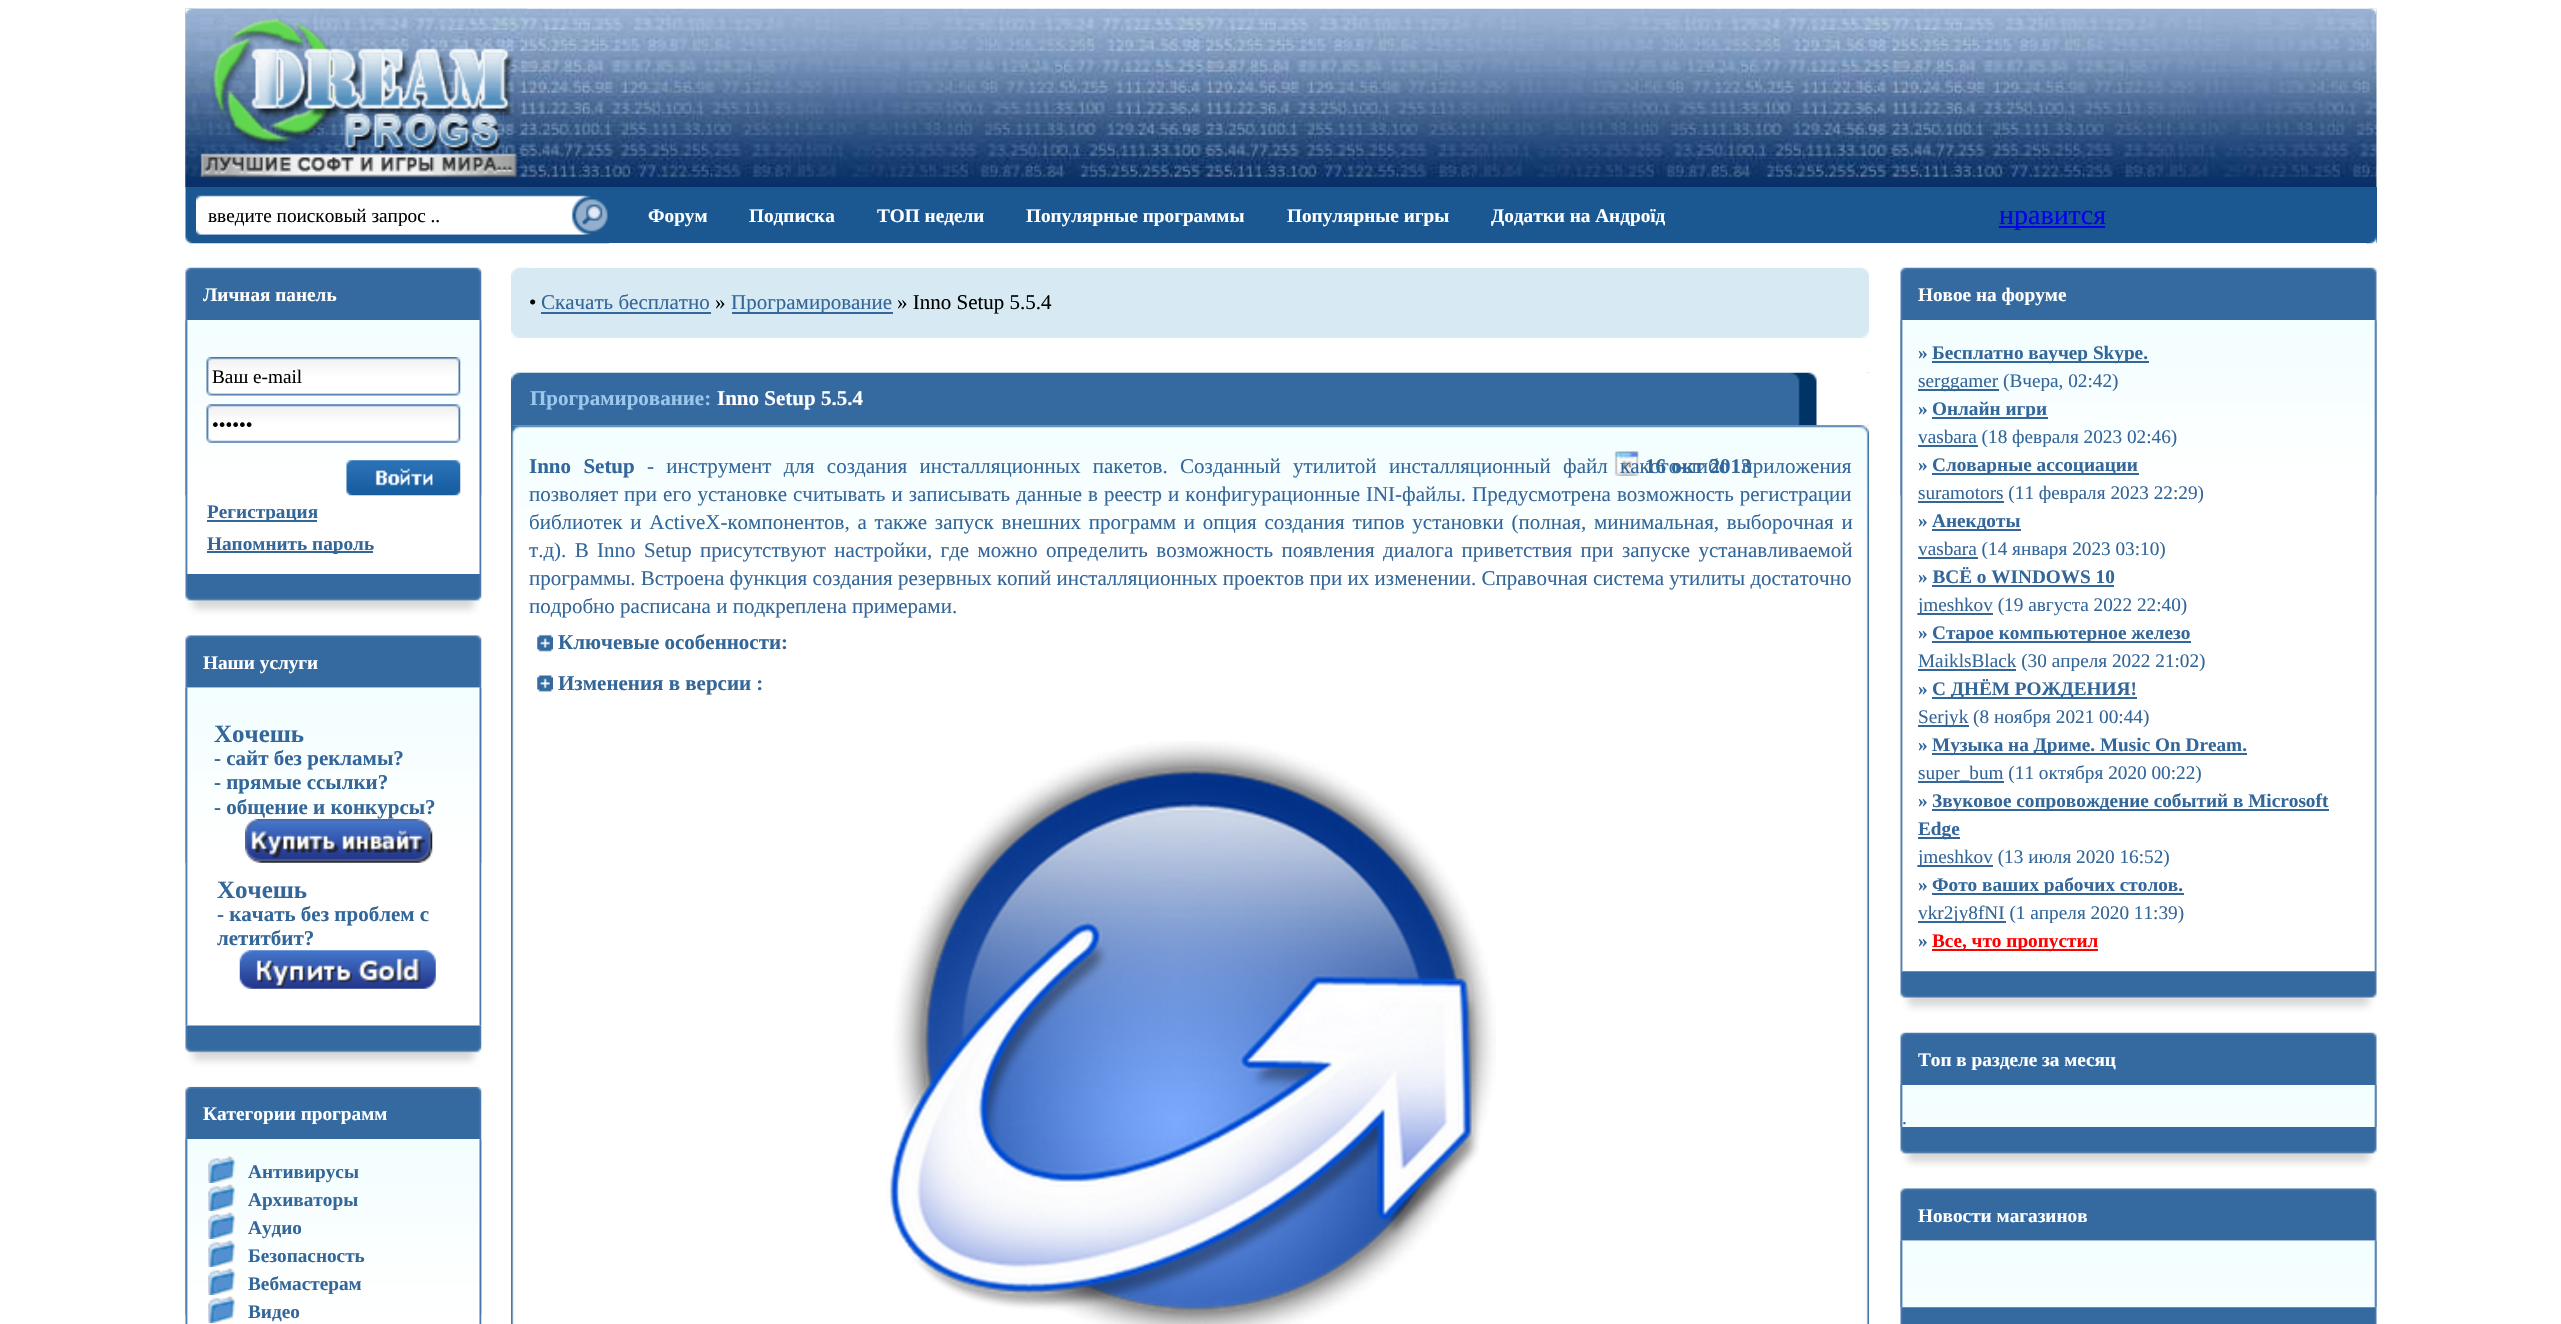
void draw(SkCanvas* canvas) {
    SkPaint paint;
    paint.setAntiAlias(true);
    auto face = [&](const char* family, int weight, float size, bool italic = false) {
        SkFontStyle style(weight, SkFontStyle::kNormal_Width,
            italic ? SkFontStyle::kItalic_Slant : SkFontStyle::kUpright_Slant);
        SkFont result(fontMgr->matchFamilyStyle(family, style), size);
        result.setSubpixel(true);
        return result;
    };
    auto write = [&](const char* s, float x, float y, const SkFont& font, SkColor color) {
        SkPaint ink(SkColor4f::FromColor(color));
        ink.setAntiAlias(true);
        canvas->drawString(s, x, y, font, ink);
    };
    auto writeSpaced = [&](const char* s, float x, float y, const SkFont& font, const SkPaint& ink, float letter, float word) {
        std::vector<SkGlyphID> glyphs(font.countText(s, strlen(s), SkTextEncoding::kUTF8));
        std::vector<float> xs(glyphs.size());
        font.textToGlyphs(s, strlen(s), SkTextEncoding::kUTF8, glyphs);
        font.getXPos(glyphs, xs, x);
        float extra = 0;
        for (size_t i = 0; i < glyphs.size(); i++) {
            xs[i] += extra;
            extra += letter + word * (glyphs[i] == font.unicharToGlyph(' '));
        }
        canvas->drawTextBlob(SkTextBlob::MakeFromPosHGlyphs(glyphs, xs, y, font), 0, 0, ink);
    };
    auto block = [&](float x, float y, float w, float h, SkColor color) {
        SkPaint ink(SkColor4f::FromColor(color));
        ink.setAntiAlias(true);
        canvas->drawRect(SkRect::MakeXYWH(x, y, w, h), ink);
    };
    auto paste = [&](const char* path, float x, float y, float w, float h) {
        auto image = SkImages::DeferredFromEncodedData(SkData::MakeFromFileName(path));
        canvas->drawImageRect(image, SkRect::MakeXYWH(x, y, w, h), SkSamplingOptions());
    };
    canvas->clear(SK_ColorWHITE);
    paste("pic1.png", 185, 8, 2192, 180);
    paste("pic2.png", 185, 8, 342, 180);
    paste("pic3.png", 185, 8, 9, 10);
    paste("pic4.png", 2369, 8, 8, 7);
    block(186, 187, 2191, 56, SkColorSetRGB(27, 87, 144));
    paste("pic5.png", 185, 187, 11, 57);
    paste("pic6.png", 196, 195, 413, 49);
    canvas->save();
    canvas->clipRect(SkRect::MakeXYWH(208, 205, 350, 21));
    auto kFont1 = face("Liberation Serif", 400, 19.25f);
    write("введите поисковый запрос ..", 208, 222, kFont1, SkColorSetRGB(0, 1, 1));
    canvas->restore();
    auto kFont2 = face("Liberation Serif", 700, 19.25f);
    write("Форум", 648, 222, kFont2, SK_ColorWHITE);
    write("Подписка", 749, 222, kFont2, SK_ColorWHITE);
    write("ТОП недели", 877, 222, kFont2, SK_ColorWHITE);
    write("Популярные программы", 1026, 222, kFont2, SK_ColorWHITE);
    write("Популярные игры", 1287, 222, kFont2, SK_ColorWHITE);
    write("Додатки на Андроїд", 1491, 222, kFont2, SK_ColorWHITE);
    block(1999, 226, 106, 2, SkColorSetRGB(0, 0, 238));
    auto kFont3 = face("Liberation Serif", 400, 28);
    write("нравится", 1999, 224, kFont3, SkColorSetRGB(0, 0, 238));
    paste("pic7.png", 2366, 236, 11, 8);
    paste("pic8.png", 185, 267, 297, 54);
    write("Личная панель", 203, 301, kFont2, SK_ColorWHITE);
    paste("pic9.png", 185, 320, 297, 254);
    paste("pic10.png", 185, 320, 297, 176);
    paste("pic11.png", 206, 357, 255, 39);
    write("Ваш e-mail", 212, 383, kFont1, SkColorSetRGB(0, 1, 1));
    paste("pic12.png", 206, 404, 255, 39);
    write("••••••", 212, 431, kFont1, SkColorSetRGB(0, 1, 1));
    paste("pic13.png", 346, 460, 115, 36);
    block(207, 520, 110, 2, SkColorSetRGB(51, 102, 153));
    write("Регистрация", 207, 518, kFont2, SkColorSetRGB(51, 102, 153));
    block(207, 551, 166, 2, SkColorSetRGB(51, 102, 153));
    write("Напомнить пароль", 207, 550, kFont2, SkColorSetRGB(51, 102, 153));
    paste("pic15.png", 185, 635, 297, 53);
    paste("pic14.png", 185, 574, 297, 62);
    write("Наши услуги", 203, 669, kFont2, SK_ColorWHITE);
    paste("pic16.png", 185, 687, 297, 339);
    paste("pic17.png", 185, 687, 297, 176);
    auto kFont4 = face("Liberation Serif", 700, 25);
    write("Хочешь", 214, 742, kFont4, SkColorSetRGB(51, 102, 153));
    auto kFont5 = face("Liberation Serif", 700, 21);
    write("- сайт без рекламы?", 214, 765, kFont5, SkColorSetRGB(51, 102, 153));
    write("- прямые ссылки?", 214, 789, kFont5, SkColorSetRGB(51, 102, 153));
    write("- общение и конкурсы?", 214, 814, kFont5, SkColorSetRGB(51, 102, 153));
    paste("pic18.png", 245, 819, 188, 44);
    write("Хочешь", 217, 898, kFont4, SkColorSetRGB(51, 102, 153));
    write("- качать без проблем с", 217, 921, kFont5, SkColorSetRGB(51, 102, 153));
    write("летитбит?", 217, 945, kFont5, SkColorSetRGB(51, 102, 153));
    paste("pic19.png", 239, 950, 197, 39);
    paste("pic8.png", 185, 1086, 297, 54);
    paste("pic20.png", 185, 1025, 297, 62);
    write("Категории программ", 203, 1120, kFont2, SK_ColorWHITE);
    paste("pic21.png", 185, 1139, 297, 185);
    paste("pic10.png", 185, 1139, 297, 176);
    paste("pic22.png", 208, 1156, 27, 27);
    write("Антивирусы", 248, 1178, kFont2, SkColorSetRGB(51, 102, 153));
    paste("pic23.png", 208, 1184, 27, 27);
    write("Архиваторы", 248, 1206, kFont2, SkColorSetRGB(51, 102, 153));
    paste("pic24.png", 208, 1212, 27, 27);
    write("Аудио", 248, 1234, kFont2, SkColorSetRGB(51, 102, 153));
    paste("pic25.png", 208, 1240, 27, 27);
    write("Безопасность", 248, 1262, kFont2, SkColorSetRGB(51, 102, 153));
    paste("pic26.png", 208, 1268, 27, 27);
    write("Вебмастерам", 248, 1290, kFont2, SkColorSetRGB(51, 102, 153));
    paste("pic27.png", 208, 1296, 27, 27);
    write("Видео", 248, 1318, kFont2, SkColorSetRGB(51, 102, 153));
    block(511, 268, 1358, 70, SkColorSetRGB(215, 233, 242));
    paste("pic28.png", 511, 267, 18, 71);
    auto kFont6 = face("Liberation Serif", 400, 21);
    write("•", 529, 309, kFont6, SkColorSetRGB(0, 1, 1));
    write("Скачать бесплатно", 541, 309, kFont6, SkColorSetRGB(51, 102, 153));
    write("»", 715, 309, kFont6, SkColorSetRGB(0, 1, 1));
    block(541, 312, 170, 2, SkColorSetRGB(51, 102, 153));
    block(732, 312, 161, 2, SkColorSetRGB(51, 102, 153));
    write("Програмирование", 731, 309, kFont6, SkColorSetRGB(51, 102, 153));
    write("» Inno Setup 5.5.4", 897, 309, kFont6, SkColorSetRGB(0, 1, 1));
    paste("pic29.png", 1851, 267, 18, 71);
    paste("pic30.png", 511, 372, 1358, 952);
    paste("pic31.png", 511, 372, 1358, 54);
    write("Програмирование:", 530, 405, kFont5, SkColorSetRGB(156, 199, 237));
    write("Inno Setup 5.5.4", 717, 405, kFont5, SK_ColorWHITE);
    paste("pic32.png", 511, 425, 1358, 26);
    paste("pic33.png", 513, 451, 1354, 80);
    paint.setColor(SkColorSetRGB(51, 102, 153));
    writeSpaced("Inno Setup", 529, 473, kFont5, paint, 0, 7.1f);
    paste("pic36.png", 1614, 451, 25, 25);
    write("16 окт 2013", 1645, 473, kFont5, SkColorSetRGB(51, 102, 153));
    writeSpaced("- инструмент для создания инсталляционных пакетов. Созданный утилитой инсталляционный файл какого-либо приложения", 647, 473, kFont6, paint, 0, 7.1f);
    writeSpaced("позволяет при его установке считывать и записывать данные в реестр и конфигурационные INI-файлы. Предусмотрена возможность регистрации", 529, 501, kFont6, paint, 0, 0.75f);
    writeSpaced("библиотек и ActiveX-компонентов, а также запуск внешних программ и опция создания типов установки (полная, минимальная, выборочная и", 529, 529, kFont6, paint, 0, 2.5f);
    writeSpaced("т.д). В Inno Setup присутствуют настройки, где можно определить возможность появления диалога приветствия при запуске устанавливаемой", 529, 557, kFont6, paint, 0, 3.1f);
    write("программы. Встроена функция создания резервных копий инсталляционных проектов при их изменении. Справочная система утилиты достаточно", 529, 585, kFont6, SkColorSetRGB(51, 102, 153));
    write("подробно расписана и подкреплена примерами.", 529, 613, kFont6, SkColorSetRGB(51, 102, 153));
    paste("pic34.png", 537, 634, 16, 18);
    write("Ключевые особенности:", 558, 649, kFont5, SkColorSetRGB(51, 102, 153));
    paste("pic35.png", 537, 675, 16, 17);
    write("Изменения в версии :", 558, 690, kFont5, SkColorSetRGB(51, 102, 153));
    paste("pic37.png", 886, 741, 610, 583);
    paste("pic38.png", 1900, 267, 477, 54);
    write("Новое на форуме", 1918, 301, kFont2, SK_ColorWHITE);
    block(1901, 320, 476, 1, SK_ColorWHITE);
    paste("pic39.png", 1900, 320, 477, 652);
    paste("pic40.png", 1900, 320, 477, 176);
    write("»", 1918, 359, kFont2, SkColorSetRGB(51, 102, 153));
    block(1932, 361, 217, 2, SkColorSetRGB(51, 102, 153));
    write("Бесплатно ваучер Skype.", 1932, 359, kFont2, SkColorSetRGB(51, 102, 153));
    block(1918, 389, 81, 2, SkColorSetRGB(51, 102, 153));
    write("serggamer (Вчера, 02:42)", 1918, 387, kFont1, SkColorSetRGB(51, 102, 153));
    write("»", 1918, 415, kFont2, SkColorSetRGB(51, 102, 153));
    block(1932, 417, 116, 2, SkColorSetRGB(51, 102, 153));
    write("Онлайн игри", 1932, 415, kFont2, SkColorSetRGB(51, 102, 153));
    block(1918, 445, 60, 2, SkColorSetRGB(51, 102, 153));
    write("vasbara (18 февраля 2023 02:46)", 1918, 443, kFont1, SkColorSetRGB(51, 102, 153));
    write("»", 1918, 471, kFont2, SkColorSetRGB(51, 102, 153));
    block(1932, 473, 207, 2, SkColorSetRGB(51, 102, 153));
    write("Словарные ассоциации", 1932, 471, kFont2, SkColorSetRGB(51, 102, 153));
    block(1918, 501, 86, 2, SkColorSetRGB(51, 102, 153));
    write("suramotors (11 февраля 2023 22:29)", 1918, 499, kFont1, SkColorSetRGB(51, 102, 153));
    write("»", 1918, 527, kFont2, SkColorSetRGB(51, 102, 153));
    block(1932, 529, 89, 2, SkColorSetRGB(51, 102, 153));
    write("Анекдоты", 1932, 527, kFont2, SkColorSetRGB(51, 102, 153));
    block(1918, 557, 60, 2, SkColorSetRGB(51, 102, 153));
    write("vasbara (14 января 2023 03:10)", 1918, 555, kFont1, SkColorSetRGB(51, 102, 153));
    write("» ВСЁ о WINDOWS 10", 1918, 583, kFont2, SkColorSetRGB(51, 102, 153));
    block(1932, 585, 182, 2, SkColorSetRGB(51, 102, 153));
    block(1918, 613, 75, 2, SkColorSetRGB(51, 102, 153));
    write("jmeshkov (19 августа 2022 22:40)", 1918, 611, kFont1, SkColorSetRGB(51, 102, 153));
    write("»", 1918, 639, kFont2, SkColorSetRGB(51, 102, 153));
    block(1932, 641, 259, 2, SkColorSetRGB(51, 102, 153));
    write("Старое компьютерное железо", 1932, 639, kFont2, SkColorSetRGB(51, 102, 153));
    block(1918, 669, 98, 2, SkColorSetRGB(51, 102, 153));
    write("MaiklsBlack (30 апреля 2022 21:02)", 1918, 667, kFont1, SkColorSetRGB(51, 102, 153));
    write("»", 1918, 695, kFont2, SkColorSetRGB(51, 102, 153));
    block(1932, 697, 205, 2, SkColorSetRGB(51, 102, 153));
    write("С ДНЁМ РОЖДЕНИЯ!", 1932, 695, kFont2, SkColorSetRGB(51, 102, 153));
    block(1918, 725, 51, 2, SkColorSetRGB(51, 102, 153));
    write("Serjyk (8 ноября 2021 00:44)", 1918, 723, kFont1, SkColorSetRGB(51, 102, 153));
    write("»", 1918, 751, kFont2, SkColorSetRGB(51, 102, 153));
    block(1932, 753, 315, 2, SkColorSetRGB(51, 102, 153));
    write("Музыка на Дриме. Music On Dream.", 1932, 751, kFont2, SkColorSetRGB(51, 102, 153));
    block(1918, 781, 86, 2, SkColorSetRGB(51, 102, 153));
    write("super_bum (11 октября 2020 00:22)", 1918, 779, kFont1, SkColorSetRGB(51, 102, 153));
    write("»", 1918, 807, kFont2, SkColorSetRGB(51, 102, 153));
    block(1932, 809, 397, 2, SkColorSetRGB(51, 102, 153));
    write("Звуковое сопровождение событий в Microsoft", 1932, 807, kFont2, SkColorSetRGB(51, 102, 153));
    block(1918, 837, 42, 2, SkColorSetRGB(51, 102, 153));
    write("Edge", 1918, 835, kFont2, SkColorSetRGB(51, 102, 153));
    block(1918, 865, 75, 2, SkColorSetRGB(51, 102, 153));
    write("jmeshkov (13 июля 2020 16:52)", 1918, 863, kFont1, SkColorSetRGB(51, 102, 153));
    write("»", 1918, 891, kFont2, SkColorSetRGB(51, 102, 153));
    block(1932, 893, 252, 2, SkColorSetRGB(51, 102, 153));
    write("Фото ваших рабочих столов.", 1932, 891, kFont2, SkColorSetRGB(51, 102, 153));
    block(1918, 921, 88, 2, SkColorSetRGB(51, 102, 153));
    write("vkr2jy8fNI (1 апреля 2020 11:39)", 1918, 919, kFont1, SkColorSetRGB(51, 102, 153));
    write("»", 1918, 947, kFont2, SkColorSetRGB(51, 102, 153));
    block(1932, 949, 166, 2, SkColorSetRGB(255, 0, 0));
    write("Все, что пропустил", 1932, 947, kFont2, SkColorSetRGB(255, 0, 0));
    paste("pic42.png", 1900, 1032, 477, 53);
    paste("pic41.png", 1900, 971, 477, 62);
    write("Топ в разделе за месяц", 1918, 1066, kFont2, SK_ColorWHITE);
    paste("pic43.png", 1900, 1085, 477, 42);
    paste("pic44.png", 1900, 1085, 477, 42);
    write(".", 1902, 1124, kFont1, SkColorSetRGB(51, 102, 153));
    paste("pic46.png", 1900, 1188, 477, 53);
    paste("pic45.png", 1900, 1127, 477, 62);
    write("Новости магазинов", 1918, 1222, kFont2, SK_ColorWHITE);
    paste("pic47.png", 1900, 1240, 477, 68);
    paste("pic48.png", 1900, 1240, 477, 68);
    paste("pic49.png", 1900, 1307, 477, 17);
}
